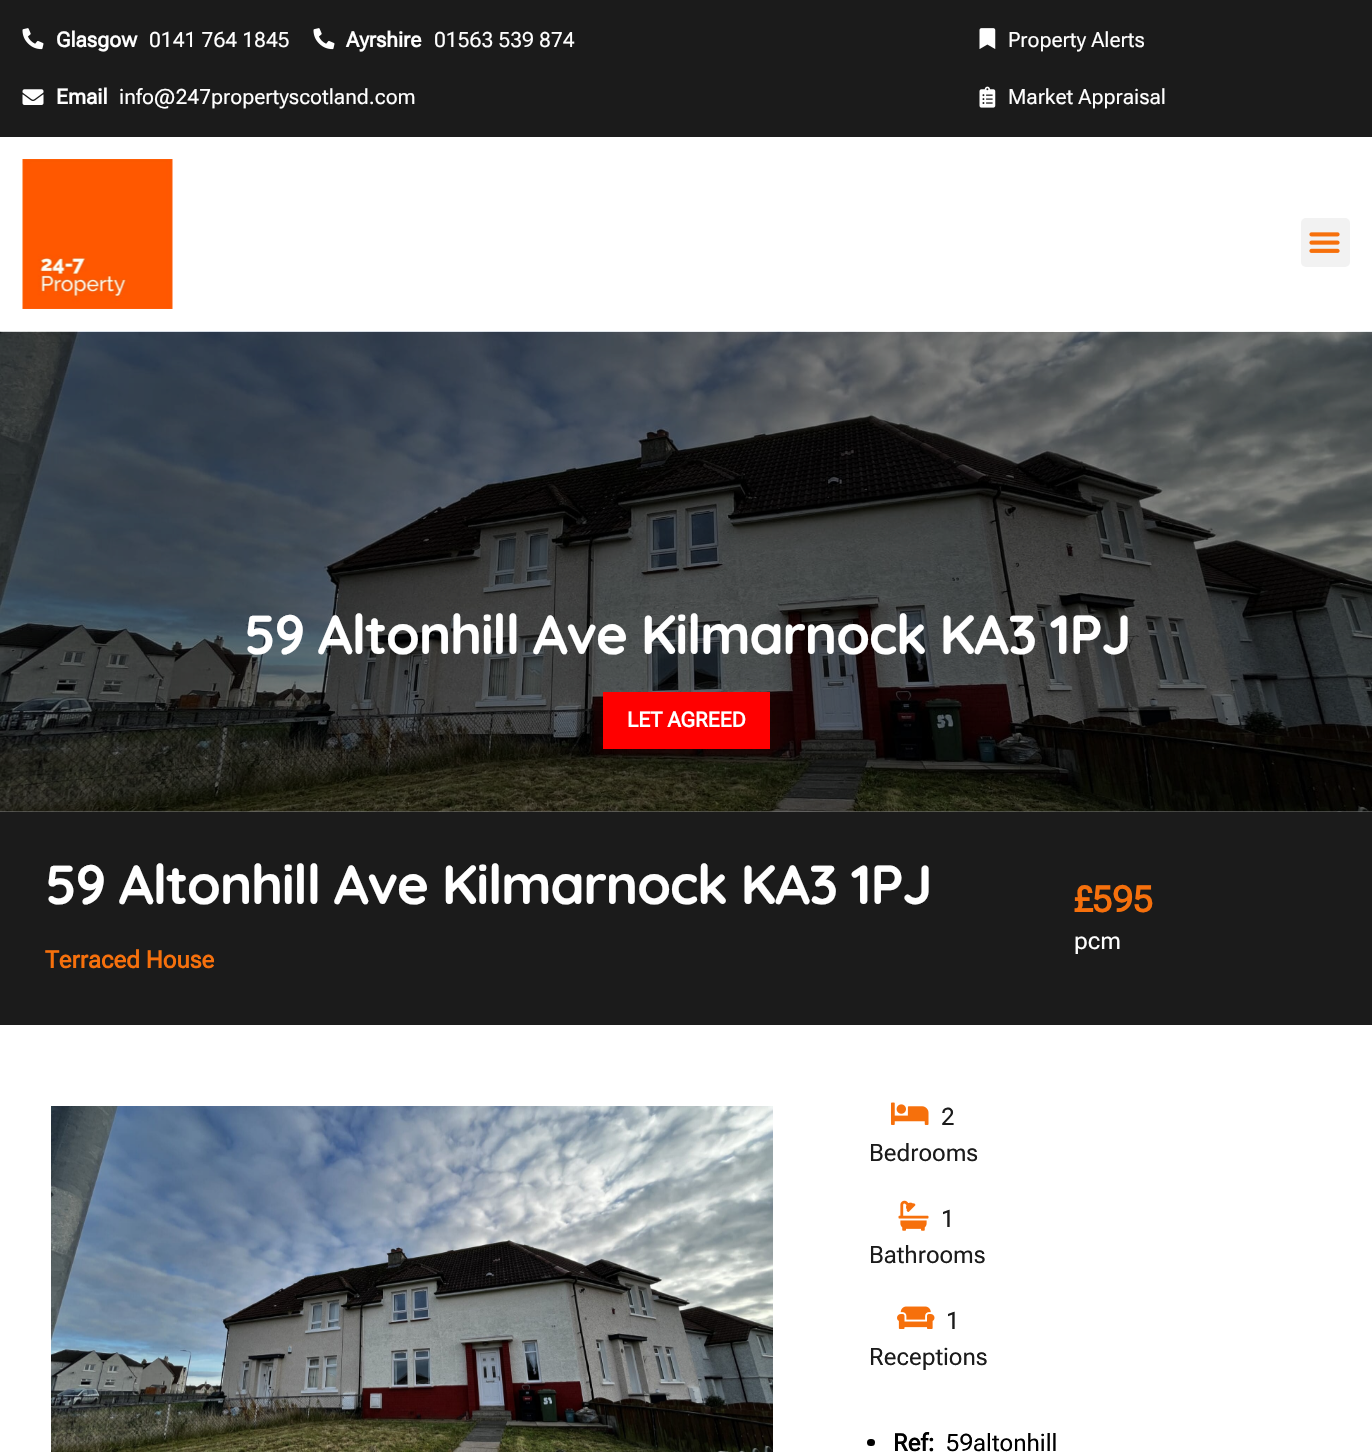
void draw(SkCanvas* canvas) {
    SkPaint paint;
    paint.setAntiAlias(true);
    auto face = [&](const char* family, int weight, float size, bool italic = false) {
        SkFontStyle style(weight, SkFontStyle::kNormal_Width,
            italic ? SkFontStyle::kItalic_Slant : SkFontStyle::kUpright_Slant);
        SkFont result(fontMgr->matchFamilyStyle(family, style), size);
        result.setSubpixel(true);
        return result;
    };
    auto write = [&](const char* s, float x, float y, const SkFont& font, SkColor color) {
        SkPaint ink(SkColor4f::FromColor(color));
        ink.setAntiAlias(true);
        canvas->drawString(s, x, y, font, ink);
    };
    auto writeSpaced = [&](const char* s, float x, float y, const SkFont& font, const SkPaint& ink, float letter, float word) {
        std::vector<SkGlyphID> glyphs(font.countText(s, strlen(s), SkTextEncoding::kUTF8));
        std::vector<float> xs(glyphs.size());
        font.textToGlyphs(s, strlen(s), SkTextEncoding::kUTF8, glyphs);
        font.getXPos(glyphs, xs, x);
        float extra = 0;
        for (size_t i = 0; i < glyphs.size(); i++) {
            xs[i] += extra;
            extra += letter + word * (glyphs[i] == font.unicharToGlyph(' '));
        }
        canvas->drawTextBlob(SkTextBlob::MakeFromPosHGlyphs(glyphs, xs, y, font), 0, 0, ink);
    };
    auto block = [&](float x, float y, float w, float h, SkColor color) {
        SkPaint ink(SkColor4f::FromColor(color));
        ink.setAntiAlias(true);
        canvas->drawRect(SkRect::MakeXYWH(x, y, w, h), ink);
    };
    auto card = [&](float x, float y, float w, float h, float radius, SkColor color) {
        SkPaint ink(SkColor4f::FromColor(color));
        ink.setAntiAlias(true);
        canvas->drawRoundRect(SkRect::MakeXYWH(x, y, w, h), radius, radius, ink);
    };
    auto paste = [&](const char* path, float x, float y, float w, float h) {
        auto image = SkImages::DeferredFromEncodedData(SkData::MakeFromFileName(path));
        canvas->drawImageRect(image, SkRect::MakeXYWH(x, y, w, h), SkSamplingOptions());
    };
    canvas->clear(SK_ColorWHITE);
    block(0, 811, 1372, 1, SkColorSetRGB(128, 128, 128));
    block(0, 0, 1372, 137, SkColorSetRGB(27, 27, 27));
    paste("pic1.png", 22, 28, 22, 22);
    auto kFont1 = face("Roboto Flex", 700, 21);
    write("Glasgow", 56, 47, kFont1, SK_ColorWHITE);
    auto kFont2 = face("Roboto Flex", 400, 21);
    write("0141 764 1845", 149, 47, kFont2, SK_ColorWHITE);
    paste("pic1.png", 313, 28, 22, 22);
    write("Ayrshire", 346, 47, kFont1, SK_ColorWHITE);
    write("01563 539 874", 434, 47, kFont2, SK_ColorWHITE);
    paste("pic2.png", 22, 89, 22, 16);
    write("Email", 56, 104, kFont1, SK_ColorWHITE);
    write("info@247propertyscotland.com", 119, 104, kFont2, SK_ColorWHITE);
    paste("pic3.png", 979, 28, 17, 21);
    write("Property Alerts", 1008, 47, kFont2, SK_ColorWHITE);
    paste("pic4.png", 979, 86, 17, 22);
    write("Market Appraisal", 1008, 104, kFont2, SK_ColorWHITE);
    paste("pic5.png", 22, 159, 151, 150);
    card(1301, 218, 49, 49, 5, SkColorSetRGB(242, 242, 242));
    paste("pic6.png", 1309, 232, 31, 21);
    paste("pic7.png", 0, 331, 1372, 481);
    auto kFont3 = face("Quicksand", 700, 55);
    paint.setColor(SK_ColorWHITE);
    writeSpaced("59 Altonhill Ave Kilmarnock KA3 1PJ", 244, 654, kFont3, paint, -1.5f, 0);
    block(603, 692, 167, 57, SkColorSetRGB(255, 0, 0));
    write("LET AGREED", 627, 727, kFont1, SK_ColorWHITE);
    block(0, 812, 1372, 213, SkColorSetRGB(27, 27, 27));
    writeSpaced("59 Altonhill Ave Kilmarnock KA3 1PJ", 45, 904, kFont3, paint, -1.5f, 0);
    auto kFont4 = face("Roboto Flex", 700, 24);
    write("Terraced House", 45, 968, kFont4, SkColorSetRGB(246, 112, 12));
    auto kFont5 = face("Roboto Flex", 700, 36);
    write("£595", 1074, 912, kFont5, SkColorSetRGB(246, 112, 12));
    auto kFont6 = face("Roboto Flex", 400, 24);
    write("pcm", 1074, 949, kFont6, SK_ColorWHITE);
    paste("pic8.png", 51, 1106, 722, 346);
    paste("pic9.png", 891, 1102, 38, 23);
    write("2", 941, 1125, kFont6, SkColorSetRGB(27, 27, 27));
    write("Bedrooms", 869, 1161, kFont6, SkColorSetRGB(27, 27, 27));
    paste("pic10.png", 898, 1200, 31, 31);
    write("1", 941, 1227, kFont6, SkColorSetRGB(27, 27, 27));
    write("Bathrooms", 869, 1263, kFont6, SkColorSetRGB(27, 27, 27));
    paste("pic11.png", 897, 1306, 38, 23);
    write("1", 946, 1329, kFont6, SkColorSetRGB(27, 27, 27));
    write("Receptions", 869, 1365, kFont6, SkColorSetRGB(27, 27, 27));
    card(867, 1439, 8, 7, 3.5f, SK_ColorBLACK);
    write("Ref:", 893, 1451, kFont4, SK_ColorBLACK);
    write("59altonhill", 946, 1451, kFont6, SK_ColorBLACK);
}
